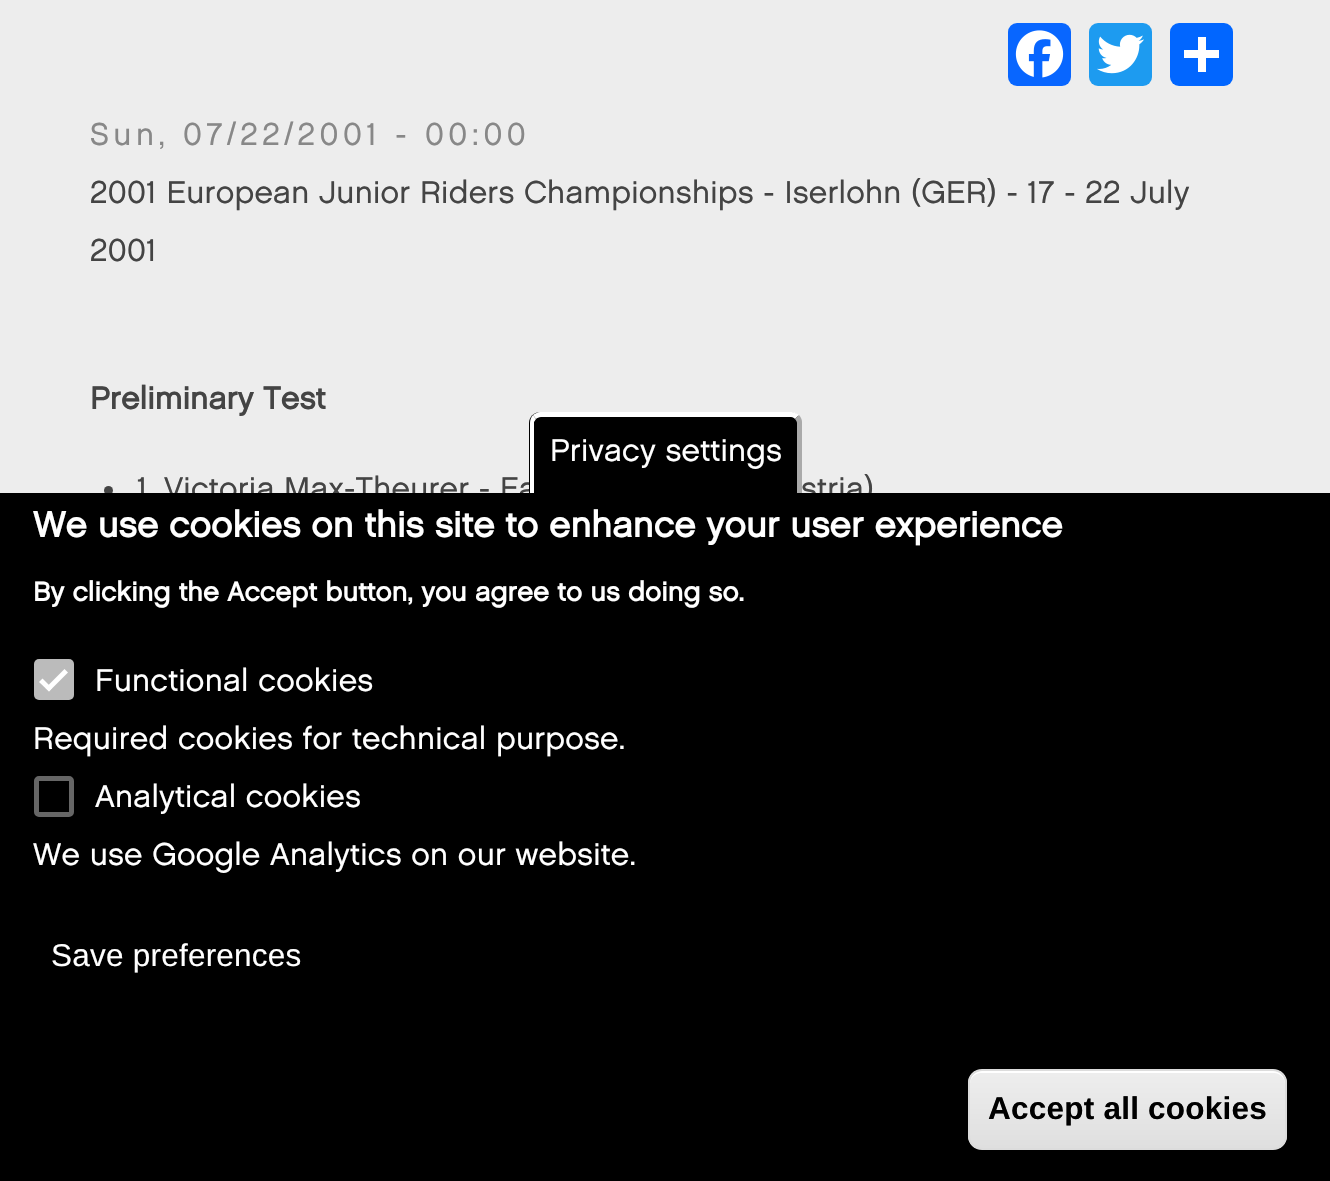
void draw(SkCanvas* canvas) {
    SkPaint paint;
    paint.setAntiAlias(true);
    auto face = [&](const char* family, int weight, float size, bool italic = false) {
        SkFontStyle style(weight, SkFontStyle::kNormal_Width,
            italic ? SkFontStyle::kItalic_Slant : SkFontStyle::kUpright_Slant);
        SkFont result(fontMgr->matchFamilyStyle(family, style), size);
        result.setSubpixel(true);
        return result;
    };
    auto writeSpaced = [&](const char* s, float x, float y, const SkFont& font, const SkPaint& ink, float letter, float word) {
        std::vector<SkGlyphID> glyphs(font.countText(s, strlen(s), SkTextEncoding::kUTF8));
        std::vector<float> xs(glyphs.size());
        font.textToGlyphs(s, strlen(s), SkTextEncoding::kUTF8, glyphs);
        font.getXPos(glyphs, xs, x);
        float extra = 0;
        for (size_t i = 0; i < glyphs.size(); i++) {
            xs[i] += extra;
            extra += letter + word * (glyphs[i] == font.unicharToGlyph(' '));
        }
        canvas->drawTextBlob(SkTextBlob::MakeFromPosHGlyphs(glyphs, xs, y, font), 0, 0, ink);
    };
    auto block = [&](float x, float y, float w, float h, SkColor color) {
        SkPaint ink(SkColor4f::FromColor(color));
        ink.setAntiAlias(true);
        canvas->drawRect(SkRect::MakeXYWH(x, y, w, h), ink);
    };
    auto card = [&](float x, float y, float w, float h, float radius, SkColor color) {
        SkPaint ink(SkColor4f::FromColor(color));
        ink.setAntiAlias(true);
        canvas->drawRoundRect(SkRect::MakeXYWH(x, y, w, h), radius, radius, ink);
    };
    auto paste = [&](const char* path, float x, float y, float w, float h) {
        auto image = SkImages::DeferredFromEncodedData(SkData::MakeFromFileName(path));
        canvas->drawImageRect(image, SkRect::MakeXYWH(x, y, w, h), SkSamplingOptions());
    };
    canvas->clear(SkColorSetRGB(237, 237, 237));
    card(1008, 23, 63, 63, 9, SkColorSetRGB(8, 102, 255));
    paste("pic1.png", 1015, 30, 49, 48);
    card(1089, 23, 63, 63, 9, SkColorSetRGB(29, 155, 240));
    paste("pic2.png", 1097, 34, 47, 40);
    card(1170, 23, 63, 63, 9, SkColorSetRGB(1, 102, 255));
    block(1198, 37, 8, 35, SK_ColorWHITE);
    block(1184, 50, 35, 8, SK_ColorWHITE);
    auto kFont1 = face("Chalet", 500, 31.5f);
    paint.setColor(SkColorSetRGB(136, 136, 136));
    writeSpaced("Sun, 07/22/2001 - 00:00", 90, 145, kFont1, paint, 4.5f, 0);
    paint.setColor(SkColorSetRGB(68, 68, 68));
    writeSpaced("2001 European Junior Riders Championships - Iserlohn (GER) - 17 - 22 July", 90, 203, kFont1, paint, 0.23f, 0);
    writeSpaced("2001", 90, 261, kFont1, paint, 0.23f, 0);
    auto kFont2 = face("Chalet", 700, 31.5f);
    writeSpaced("Preliminary Test", 90, 409, kFont2, paint, 0.23f, 0);
    canvas->drawCircle(108.5f, 490.5f, 4.5f, paint);
    writeSpaced("1. Victoria Max-Theurer - Fa", 137, 499, kFont1, paint, 0.23f, 0);
    writeSpaced("stria)", 801, 499, kFont1, paint, 0.23f, 0);
    block(0, 493, 1330, 688, SK_ColorBLACK);
    paint.setColor(SK_ColorBLACK);
    canvas->drawPath(SkPathBuilder().moveTo(540, 412).lineTo(790, 412).cubicTo(796, 412, 801, 417, 801, 423).lineTo(801, 493).lineTo(529, 493).lineTo(529, 423).cubicTo(529, 417, 534, 412, 540, 412).close().detach(), paint);
    paint.setColor(SK_ColorWHITE);
    canvas->drawPath(SkPathBuilder().moveTo(541, 417).cubicTo(539, 417, 537, 418, 536, 419).lineTo(533, 415).cubicTo(535, 414, 537, 412, 540, 412).lineTo(792, 412).cubicTo(795, 412, 797, 414, 799, 415).lineTo(795, 419).cubicTo(794, 418, 793, 417, 791, 417).close().detach(), paint);
    paint.setColor(SkColorSetRGB(170, 170, 170));
    canvas->drawPath(SkPathBuilder().moveTo(802, 422).lineTo(802, 493).lineTo(797, 493).lineTo(797, 423).cubicTo(797, 422, 796, 420, 795, 419).lineTo(799, 415).cubicTo(801, 417, 802, 420, 802, 422).close().detach(), paint);
    paint.setColor(SK_ColorWHITE);
    canvas->drawPath(SkPathBuilder().moveTo(536, 419).lineTo(533, 415).cubicTo(531, 417, 530, 420, 530, 423).lineTo(530, 493).lineTo(534, 493).lineTo(534, 422).close().detach(), paint);
    writeSpaced("Privacy settings", 550, 461, kFont1, paint, 0.23f, 0);
    auto kFont3 = face("Chalet", 700, 36);
    writeSpaced("We use cookies on this site to enhance your user experience", 33, 537, kFont3, paint, 0.23f, 0);
    auto kFont4 = face("Chalet", 700, 27);
    writeSpaced("By clicking the Accept button, you agree to us doing so.", 33, 601, kFont4, paint, 0.23f, 0);
    card(34, 659, 40, 41, 5, SkColorSetRGB(187, 187, 187));
    canvas->drawPath(SkPathBuilder().moveTo(64.5f, 669).lineTo(68, 672.5f).lineTo(49, 691.5f).lineTo(45.5f, 688).close().detach(), paint);
    canvas->drawPath(SkPathBuilder().moveTo(42.5f, 678.5f).lineTo(52, 688).lineTo(49, 691.5f).lineTo(39, 682).close().detach(), paint);
    writeSpaced("Functional cookies", 95, 691, kFont1, paint, 0.23f, 0);
    writeSpaced("Required cookies for technical purpose.", 33, 749, kFont1, paint, 0.23f, 0);
    paint.setStyle(SkPaint::kStroke_Style);
    paint.setStrokeWidth(5);
    paint.setColor(SkColorSetRGB(102, 102, 102));
    canvas->drawRoundRect(SkRect::MakeXYWH(36.5f, 778.5f, 35, 36), 2.5f, 2.5f, paint);
    paint.setStyle(SkPaint::kFill_Style);
    paint.setColor(SK_ColorWHITE);
    writeSpaced("Analytical cookies", 95, 807, kFont1, paint, 0.23f, 0);
    writeSpaced("We use Google Analytics on our website.", 33, 865, kFont1, paint, 0.23f, 0);
    auto kFont5 = face("Liberation Sans", 400, 31.5f);
    writeSpaced("Save preferences", 51, 966, kFont5, paint, 0.23f, 0);
    canvas->save();
    canvas->clipPath(SkPathBuilder().moveTo(982, 1069).lineTo(1273, 1069).cubicTo(1280.5f, 1069, 1287, 1075.5f, 1287, 1083).lineTo(1287, 1136).cubicTo(1287, 1143.5f, 1280.5f, 1150, 1273, 1150).lineTo(982, 1150).cubicTo(974.5f, 1150, 968, 1143.5f, 968, 1136).lineTo(968, 1083).cubicTo(968, 1075.5f, 974.5f, 1069, 982, 1069).close().detach(), true);
    {
        const SkColor colors[] = {SkColorSetRGB(237, 237, 237), SkColorSetRGB(223, 223, 223)};
        const float stops[] = {0.05f, 1};
        const SkPoint ends[] = {{1127, 1071}, {1127, 1148}};
        paint.setShader(SkGradientShader::MakeLinear(ends, colors, stops, 2, SkTileMode::kClamp));
        paint.setAlpha(255);
    }
    canvas->drawRect(SkRect::MakeXYWH(968, 1071, 319, 77), paint);
    canvas->restore();
    paint.setShader(nullptr);
    paint.setColor(SK_ColorWHITE);
    canvas->drawPath(SkPathBuilder().moveTo(981, 1073).lineTo(1274, 1073).cubicTo(1280, 1073, 1285, 1078, 1285, 1084).lineTo(1285, 1082).cubicTo(1285, 1076, 1280, 1071, 1274, 1071).lineTo(981, 1071).cubicTo(975, 1071, 970, 1076, 970, 1082).lineTo(970, 1084).cubicTo(970, 1078, 975, 1073, 981, 1073).close().detach(), paint);
    paint.setStyle(SkPaint::kStroke_Style);
    paint.setStrokeWidth(2);
    paint.setColor(SkColorSetRGB(220, 220, 220));
    canvas->drawRoundRect(SkRect::MakeXYWH(969, 1070, 317, 79), 13, 13, paint);
    auto kFont6 = face("Liberation Sans", 700, 31.5f);
    paint.setStyle(SkPaint::kFill_Style);
    paint.setColor(SK_ColorBLACK);
    writeSpaced("Accept all cookies", 988, 1119, kFont6, paint, 0.23f, 0);
}
